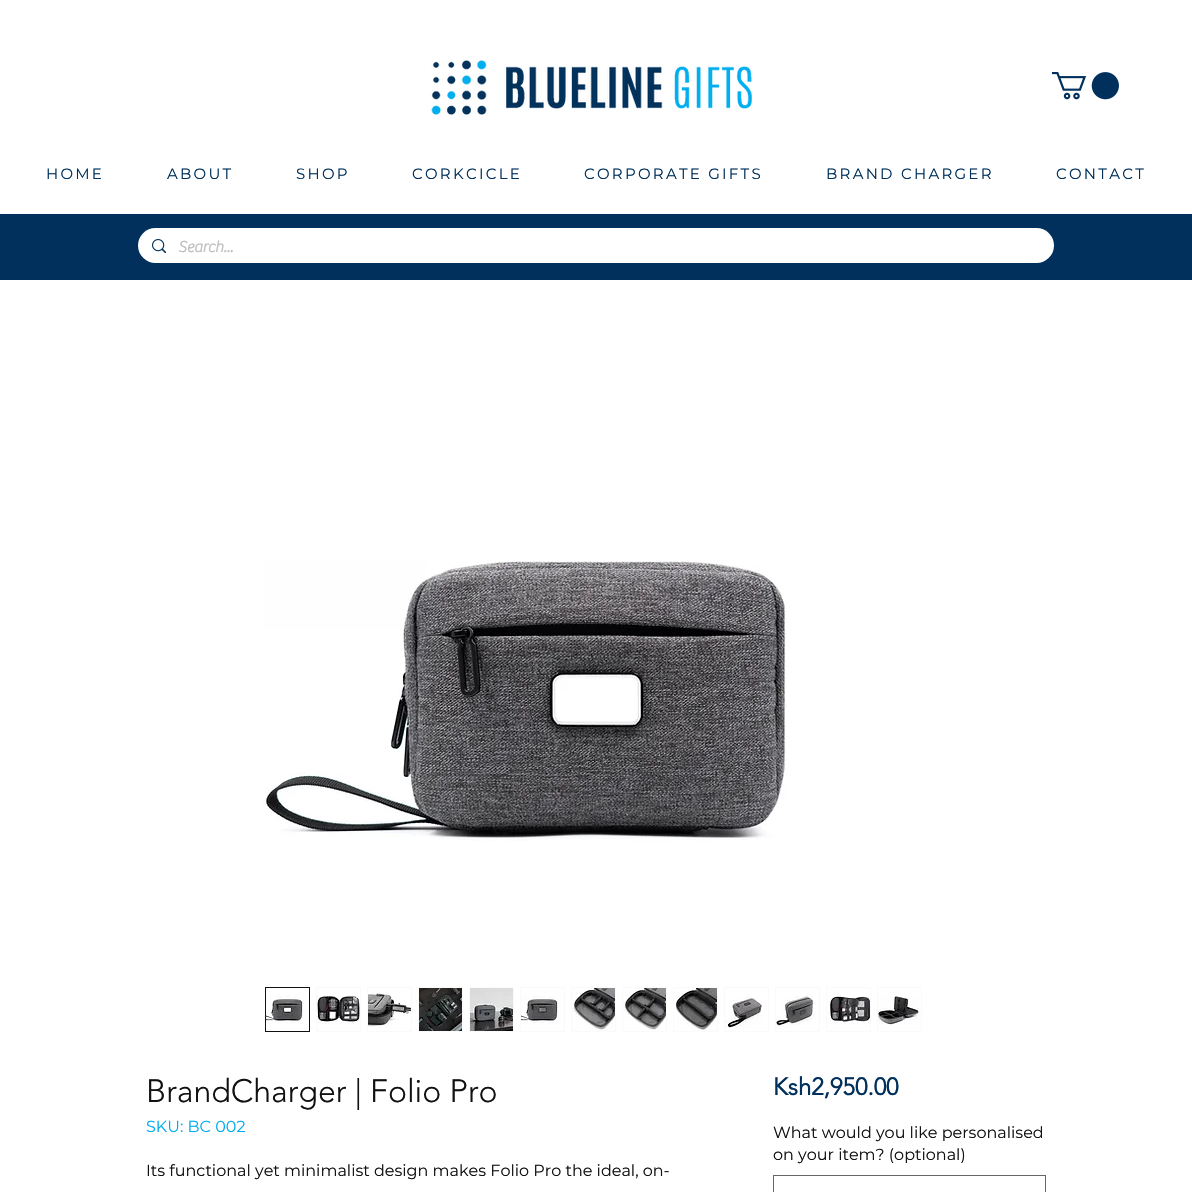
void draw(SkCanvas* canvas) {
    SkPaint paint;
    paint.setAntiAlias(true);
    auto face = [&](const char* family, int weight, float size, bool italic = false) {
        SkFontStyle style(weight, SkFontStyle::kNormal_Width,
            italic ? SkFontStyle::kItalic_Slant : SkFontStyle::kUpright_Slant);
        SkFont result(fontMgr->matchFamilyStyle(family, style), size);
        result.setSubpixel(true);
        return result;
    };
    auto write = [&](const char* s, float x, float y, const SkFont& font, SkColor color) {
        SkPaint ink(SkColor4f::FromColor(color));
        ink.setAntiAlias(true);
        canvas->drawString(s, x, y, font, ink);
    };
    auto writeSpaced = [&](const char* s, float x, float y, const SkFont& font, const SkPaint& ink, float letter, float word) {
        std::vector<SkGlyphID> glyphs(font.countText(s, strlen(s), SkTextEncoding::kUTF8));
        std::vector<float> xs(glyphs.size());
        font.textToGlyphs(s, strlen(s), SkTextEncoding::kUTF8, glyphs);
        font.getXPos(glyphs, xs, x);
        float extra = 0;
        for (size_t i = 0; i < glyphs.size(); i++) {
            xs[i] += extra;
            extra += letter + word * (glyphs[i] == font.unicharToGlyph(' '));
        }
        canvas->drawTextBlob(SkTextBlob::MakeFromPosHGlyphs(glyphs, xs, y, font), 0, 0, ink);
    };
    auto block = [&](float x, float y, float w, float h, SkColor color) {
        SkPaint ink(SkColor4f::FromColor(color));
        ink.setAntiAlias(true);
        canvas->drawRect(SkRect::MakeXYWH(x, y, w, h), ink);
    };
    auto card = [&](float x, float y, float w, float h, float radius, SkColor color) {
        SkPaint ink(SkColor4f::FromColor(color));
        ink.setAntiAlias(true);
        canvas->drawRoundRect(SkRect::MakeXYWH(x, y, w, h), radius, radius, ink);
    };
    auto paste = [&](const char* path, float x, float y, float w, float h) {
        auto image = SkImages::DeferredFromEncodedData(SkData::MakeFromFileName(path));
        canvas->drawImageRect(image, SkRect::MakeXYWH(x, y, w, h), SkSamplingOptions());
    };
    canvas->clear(SK_ColorWHITE);
    paste("pic1.png", 429, 60, 325, 55);
    paste("pic2.png", 1052, 72, 67, 28);
    auto kFont1 = face("Montserrat", 400, 15);
    paint.setColor(SkColorSetRGB(0, 48, 91));
    writeSpaced("HOME", 46, 179, kFont1, paint, 2.25f, 0);
    writeSpaced("ABOUT", 167, 179, kFont1, paint, 2.25f, 0);
    writeSpaced("SHOP", 296, 179, kFont1, paint, 2.25f, 0);
    writeSpaced("CORKCICLE", 412, 179, kFont1, paint, 2.25f, 0);
    writeSpaced("CORPORATE GIFTS", 584, 179, kFont1, paint, 2.25f, 0);
    writeSpaced("BRAND CHARGER", 826, 179, kFont1, paint, 2.25f, 0);
    writeSpaced("CONTACT", 1056, 179, kFont1, paint, 2.25f, 0);
    block(0, 214, 1192, 66, SkColorSetRGB(0, 48, 91));
    card(138, 228, 916, 35, 17.5f, SK_ColorWHITE);
    paste("pic3.png", 152, 239, 14, 14);
    auto kFont2 = face("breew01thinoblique", 700, 16);
    write("Search...", 178, 252, kFont2, SkColorSetRGB(191, 191, 191));
    paste("pic4.png", 263, 561, 524, 280);
    paint.setStyle(SkPaint::kStroke_Style);
    paint.setStrokeWidth(1);
    paint.setColor(SkColorSetRGB(17, 17, 17));
    canvas->drawRect(SkRect::MakeXYWH(265.5f, 987.5f, 44, 44), paint);
    paste("pic5.png", 266, 996, 39, 28);
    paint.setColor(SkColorSetRGB(250, 250, 250));
    canvas->drawRect(SkRect::MakeXYWH(316.5f, 987.5f, 44, 44), paint);
    paste("pic6.png", 317, 996, 43, 28);
    canvas->drawRect(SkRect::MakeXYWH(367.5f, 987.5f, 44, 44), paint);
    paste("pic7.png", 368, 992, 43, 36);
    canvas->drawRect(SkRect::MakeXYWH(418.5f, 987.5f, 44, 44), paint);
    paste("pic8.png", 419, 988, 43, 43);
    canvas->drawRect(SkRect::MakeXYWH(469.5f, 987.5f, 44, 44), paint);
    paste("pic9.png", 470, 988, 43, 43);
    canvas->drawRect(SkRect::MakeXYWH(520.5f, 987.5f, 44, 44), paint);
    paste("pic10.png", 521, 996, 38, 28);
    canvas->drawRect(SkRect::MakeXYWH(571.5f, 987.5f, 44, 44), paint);
    paste("pic11.png", 572, 988, 43, 43);
    canvas->drawRect(SkRect::MakeXYWH(622.5f, 987.5f, 44, 44), paint);
    paste("pic12.png", 623, 988, 43, 43);
    canvas->drawRect(SkRect::MakeXYWH(673.5f, 987.5f, 44, 44), paint);
    paste("pic13.png", 674, 988, 43, 43);
    canvas->drawRect(SkRect::MakeXYWH(724.5f, 987.5f, 44, 44), paint);
    paste("pic14.png", 725, 996, 37, 32);
    canvas->drawRect(SkRect::MakeXYWH(775.5f, 987.5f, 44, 44), paint);
    paste("pic15.png", 776, 996, 40, 32);
    canvas->drawRect(SkRect::MakeXYWH(826.5f, 987.5f, 44, 44), paint);
    paste("pic16.png", 828, 996, 42, 28);
    canvas->drawRect(SkRect::MakeXYWH(877.5f, 987.5f, 44, 44), paint);
    paste("pic17.png", 878, 996, 43, 29);
    auto kFont3 = face("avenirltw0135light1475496", 300, 32);
    write("BrandCharger | Folio Pro", 146, 1102, kFont3, SkColorSetRGB(17, 17, 17));
    auto kFont4 = face("Montserrat", 400, 16);
    write("SKU: BC 002", 146, 1132, kFont4, SkColorSetRGB(0, 173, 239));
    write("Its functional yet minimalist design makes Folio Pro the ideal, on-", 146, 1176, kFont4, SkColorSetRGB(17, 17, 17));
    auto kFont5 = face("avenirltw0135light1475496", 700, 24);
    write("Ksh2,950.00", 773, 1095, kFont5, SkColorSetRGB(0, 48, 91));
    write("What would you like personalised", 773, 1138, kFont4, SkColorSetRGB(17, 17, 17));
    write("on your item? (optional)", 773, 1160, kFont4, SkColorSetRGB(17, 17, 17));
    paint.setColor(SkColorSetRGB(102, 102, 102));
    canvas->drawRect(SkRect::MakeXYWH(773.5f, 1175.5f, 272, 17), paint);
}
